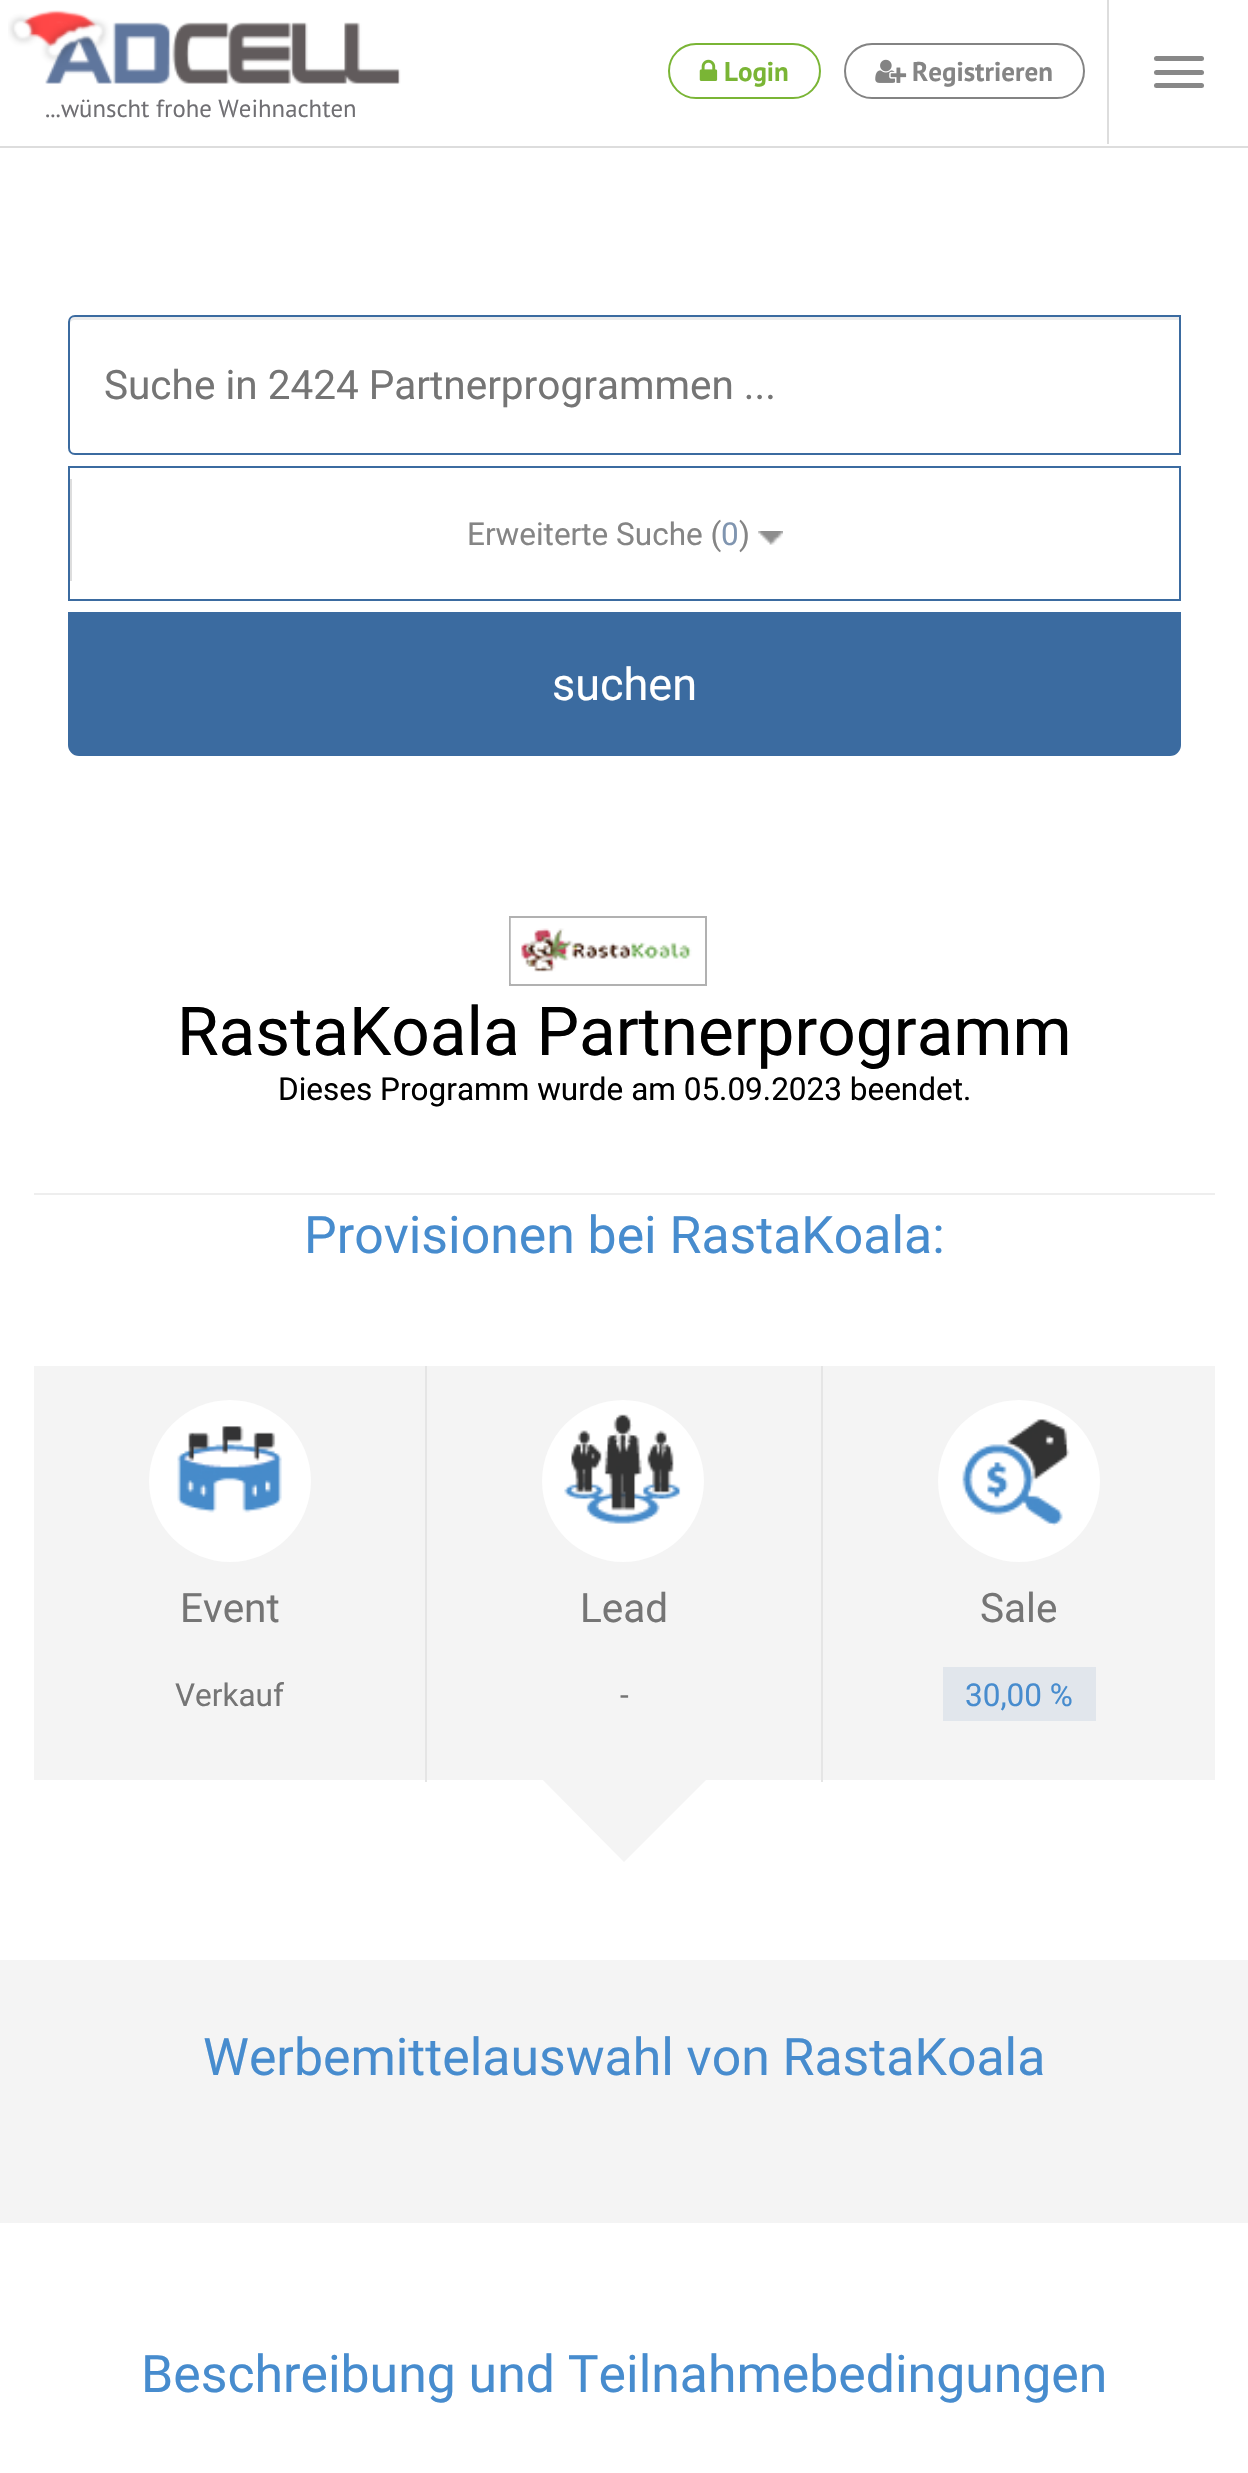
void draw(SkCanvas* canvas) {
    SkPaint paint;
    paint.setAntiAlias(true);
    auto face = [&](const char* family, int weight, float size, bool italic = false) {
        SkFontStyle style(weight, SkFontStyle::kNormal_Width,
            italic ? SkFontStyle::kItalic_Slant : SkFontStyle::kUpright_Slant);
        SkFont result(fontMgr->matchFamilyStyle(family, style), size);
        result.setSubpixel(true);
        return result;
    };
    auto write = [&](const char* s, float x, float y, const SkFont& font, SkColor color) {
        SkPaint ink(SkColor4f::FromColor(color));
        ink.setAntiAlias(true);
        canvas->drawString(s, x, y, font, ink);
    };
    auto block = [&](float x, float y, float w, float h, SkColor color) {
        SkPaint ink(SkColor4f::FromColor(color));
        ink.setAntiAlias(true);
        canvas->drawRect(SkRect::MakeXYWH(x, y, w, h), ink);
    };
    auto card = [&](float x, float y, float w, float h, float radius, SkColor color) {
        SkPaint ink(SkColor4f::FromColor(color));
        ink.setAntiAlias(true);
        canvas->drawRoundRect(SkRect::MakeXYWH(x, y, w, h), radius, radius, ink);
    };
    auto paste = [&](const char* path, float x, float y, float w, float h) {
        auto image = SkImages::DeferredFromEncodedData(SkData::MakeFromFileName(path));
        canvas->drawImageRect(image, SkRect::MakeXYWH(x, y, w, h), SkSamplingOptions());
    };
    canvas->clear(SK_ColorWHITE);
    block(0, 146, 1248, 2, SkColorSetRGB(221, 221, 221));
    paint.setStyle(SkPaint::kStroke_Style);
    paint.setStrokeWidth(2);
    paint.setColor(SkColorSetRGB(122, 181, 53));
    canvas->drawRoundRect(SkRect::MakeXYWH(669, 44, 151, 54), 27, 27, paint);
    paste("pic1.png", 699, 59, 19, 22);
    auto kFont1 = face("PT Sans", 700, 27);
    write("Login", 724, 81, kFont1, SkColorSetRGB(122, 181, 53));
    paint.setColor(SkColorSetRGB(131, 131, 131));
    canvas->drawRoundRect(SkRect::MakeXYWH(845, 44, 239, 54), 27, 27, paint);
    paste("pic2.png", 875, 59, 32, 24);
    write("Registrieren", 912, 81, kFont1, SkColorSetRGB(133, 133, 133));
    block(1107, 0, 2, 144, SkColorSetRGB(221, 221, 221));
    card(1154, 56, 50, 5, 2.5f, SkColorSetRGB(136, 136, 136));
    card(1154, 70, 50, 5, 2.5f, SkColorSetRGB(136, 136, 136));
    card(1154, 83, 50, 5, 2.5f, SkColorSetRGB(136, 136, 136));
    paste("pic3.png", 8, 10, 393, 74);
    auto kFont2 = face("PT Sans", 400, 24.75f);
    write("...wünscht frohe Weihnachten", 45, 117, kFont2, SkColorSetRGB(112, 111, 115));
    paint.setStyle(SkPaint::kFill_Style);
    paint.setColor(SkColorSetRGB(236, 236, 236));
    canvas->drawPath(SkPathBuilder().moveTo(74, 320).lineTo(1179, 320).lineTo(1179, 317).lineTo(75, 317).cubicTo(72, 317, 70, 319, 70, 322).lineTo(70, 324).cubicTo(70, 322, 72, 320, 74, 320).close().detach(), paint);
    paint.setStyle(SkPaint::kStroke_Style);
    paint.setColor(SkColorSetRGB(59, 107, 160));
    canvas->drawPath(SkPathBuilder().moveTo(75, 316).lineTo(1180, 316).lineTo(1180, 454).lineTo(75, 454).cubicTo(71.5f, 454, 69, 451.5f, 69, 448).lineTo(69, 322).cubicTo(69, 318.5f, 71.5f, 316, 75, 316).close().detach(), paint);
    auto kFont3 = face("Roboto", 400, 40.5f);
    write("Suche in 2424 Partnerprogrammen ...", 104, 399, kFont3, SkColorSetRGB(117, 117, 117));
    canvas->drawRect(SkRect::MakeXYWH(69, 467, 1111, 133), paint);
    block(70, 479, 2, 102, SkColorSetRGB(221, 221, 221));
    auto kFont4 = face("Roboto", 400, 31.5f);
    write("Erweiterte Suche (", 467, 545, kFont4, SkColorSetRGB(133, 133, 133));
    write("0", 721, 545, kFont4, SkColorSetRGB(128, 149, 176));
    write(")", 739, 545, kFont4, SkColorSetRGB(133, 133, 133));
    paste("pic4.png", 758, 531, 25, 14);
    paint.setStyle(SkPaint::kFill_Style);
    canvas->drawPath(SkPathBuilder().moveTo(69, 613).lineTo(1180, 613).lineTo(1180, 745).cubicTo(1180, 750.5f, 1175.5f, 755, 1170, 755).lineTo(79, 755).cubicTo(73.5f, 755, 69, 750.5f, 69, 745).close().detach(), paint);
    paint.setStyle(SkPaint::kStroke_Style);
    canvas->drawPath(SkPathBuilder().moveTo(69, 613).lineTo(1180, 613).lineTo(1180, 745).cubicTo(1180, 750.5f, 1175.5f, 755, 1170, 755).lineTo(79, 755).cubicTo(73.5f, 755, 69, 750.5f, 69, 745).close().detach(), paint);
    auto kFont5 = face("Roboto", 400, 45);
    write("suchen", 552, 700, kFont5, SK_ColorWHITE);
    paint.setColor(SkColorSetRGB(177, 177, 177));
    canvas->drawRect(SkRect::MakeXYWH(510, 917, 196, 68), paint);
    paste("pic5.png", 510, 918, 182, 66);
    auto kFont6 = face("Roboto", 400, 67.5f);
    write("RastaKoala Partnerprogramm", 177, 1055, kFont6, SK_ColorBLACK);
    write("Dieses Programm wurde am 05.09.2023 beendet.", 278, 1100, kFont4, SK_ColorBLACK);
    block(34, 1366, 1181, 414, SkColorSetRGB(244, 244, 244));
    block(34, 1193, 1181, 2, SkColorSetRGB(238, 238, 238));
    auto kFont7 = face("Roboto", 400, 51.75f);
    write("Provisionen bei RastaKoala:", 304, 1253, kFont7, SkColorSetRGB(71, 140, 206));
    paint.setStyle(SkPaint::kFill_Style);
    paint.setColor(SK_ColorWHITE);
    canvas->drawCircle(230, 1481, 81, paint);
    paste("pic6.png", 177, 1426, 105, 87);
    write("Event", 180, 1622, kFont3, SkColorSetRGB(117, 117, 117));
    canvas->drawCircle(623, 1481, 81, paint);
    paste("pic7.png", 564, 1414, 117, 110);
    write("Lead", 580, 1622, kFont3, SkColorSetRGB(117, 117, 117));
    canvas->drawCircle(1019, 1481, 81, paint);
    paste("pic8.png", 962, 1419, 108, 107);
    write("Sale", 980, 1622, kFont3, SkColorSetRGB(117, 117, 117));
    write("Verkauf", 175, 1706, kFont4, SkColorSetRGB(117, 117, 117));
    block(821, 1366, 2, 416, SkColorSetRGB(229, 229, 229));
    block(425, 1366, 2, 416, SkColorSetRGB(229, 229, 229));
    paint.setColor(SkColorSetRGB(244, 244, 244));
    canvas->drawPath(SkPathBuilder().moveTo(624, 1687).lineTo(712, 1774).lineTo(624, 1862).lineTo(537, 1774).close().detach(), paint);
    write("-", 620, 1706, kFont4, SkColorSetRGB(117, 117, 117));
    block(943, 1667, 153, 54, SkColorSetRGB(225, 230, 236));
    write("30,00 %", 965, 1706, kFont4, SkColorSetRGB(71, 140, 206));
    block(0, 1960, 1248, 263, SkColorSetRGB(244, 244, 244));
    write("Werbemittelauswahl von RastaKoala", 203, 2075, kFont7, SkColorSetRGB(71, 140, 206));
    write("Beschreibung und Teilnahmebedingungen", 141, 2392, kFont7, SkColorSetRGB(71, 140, 206));
}
